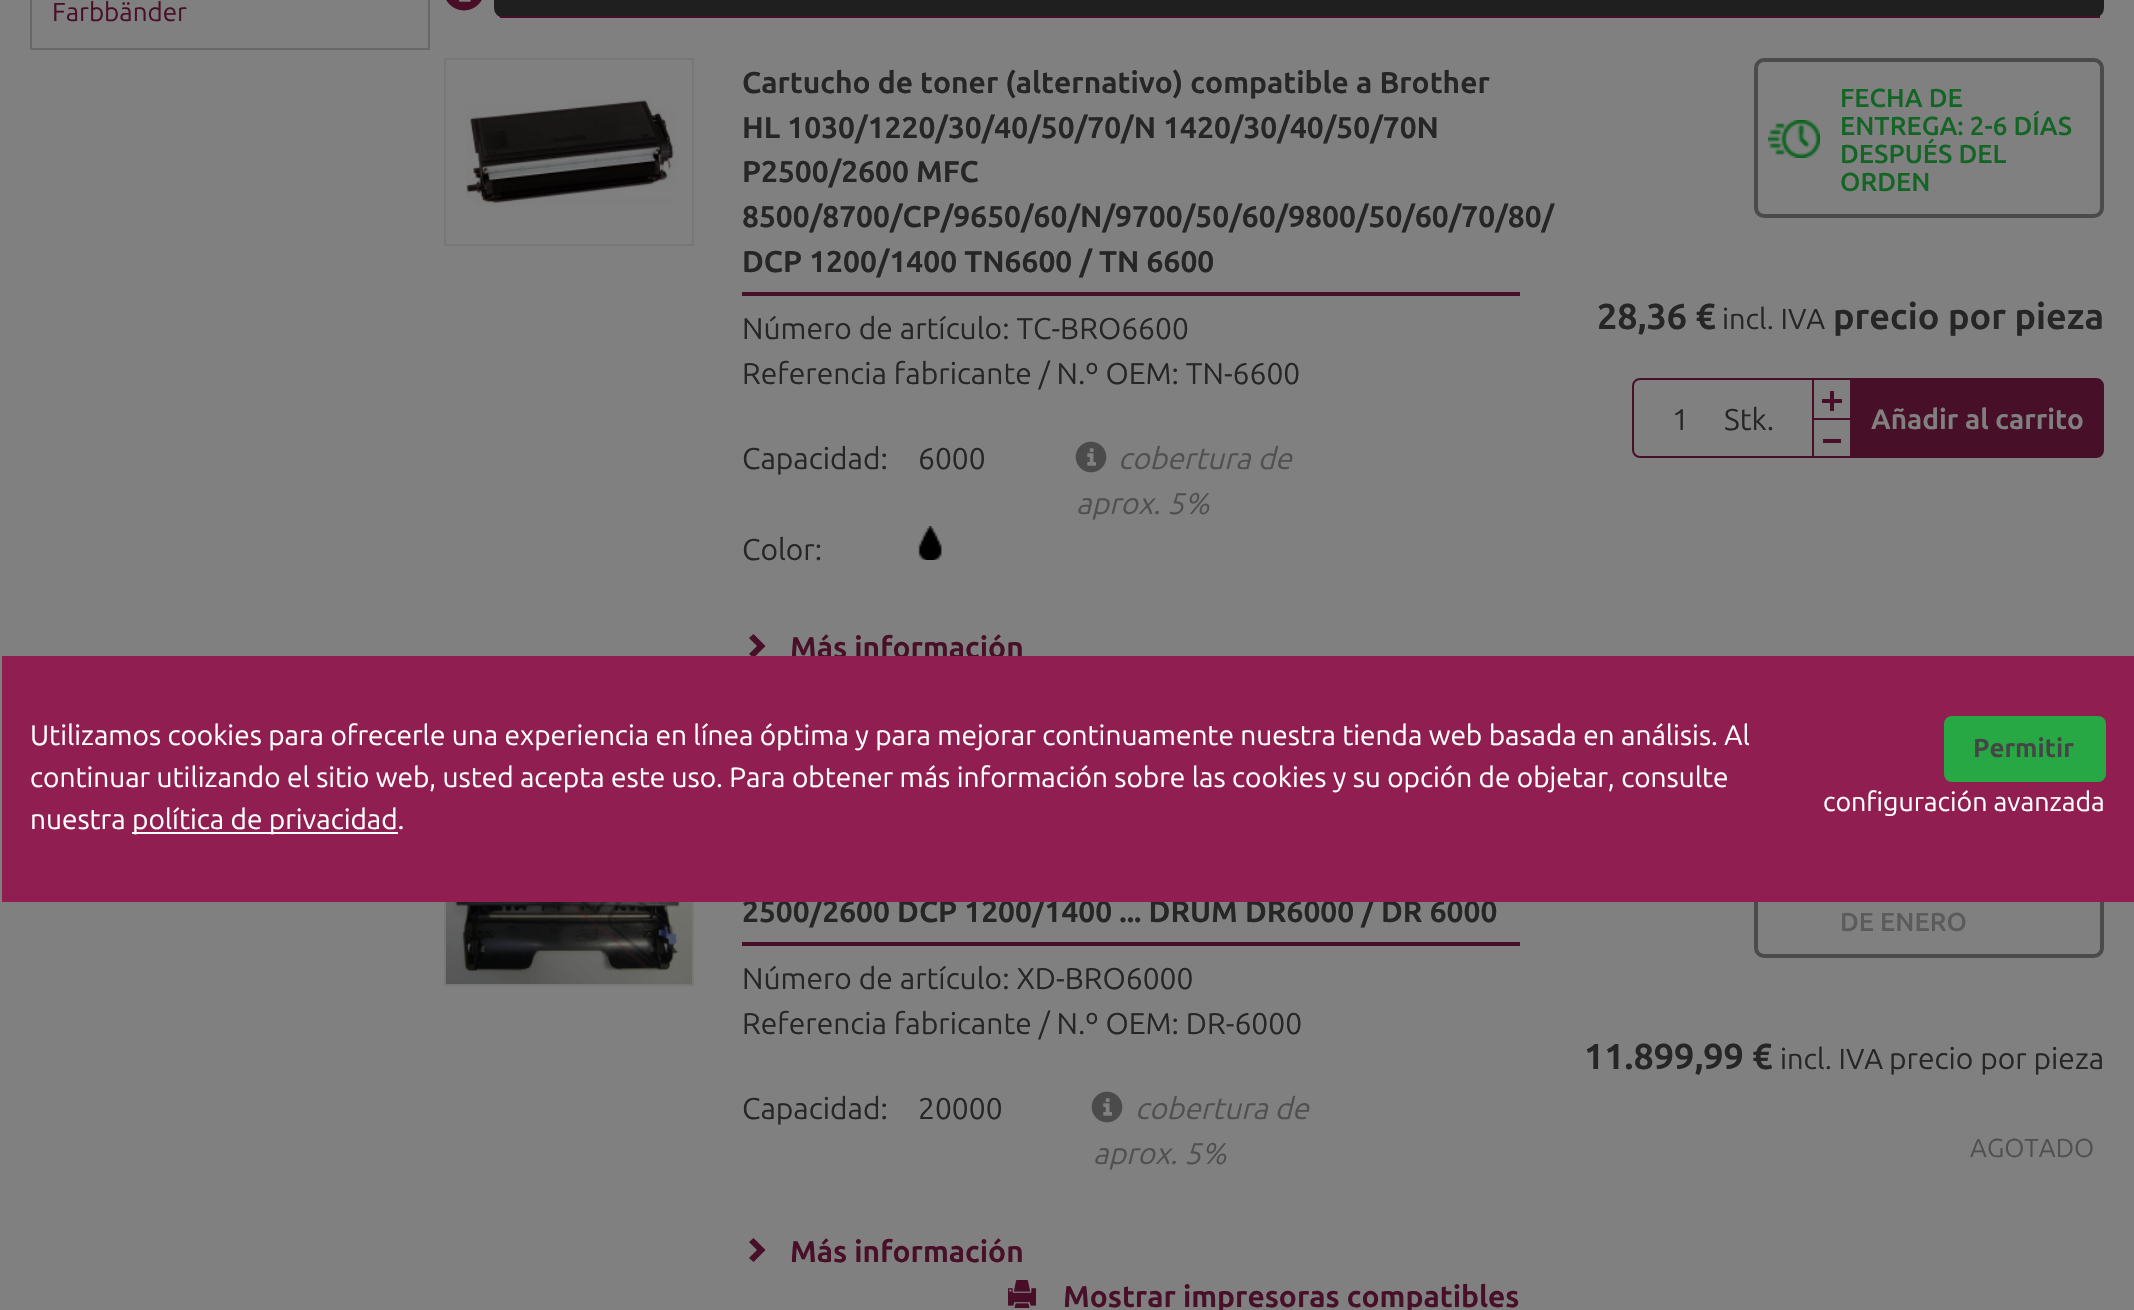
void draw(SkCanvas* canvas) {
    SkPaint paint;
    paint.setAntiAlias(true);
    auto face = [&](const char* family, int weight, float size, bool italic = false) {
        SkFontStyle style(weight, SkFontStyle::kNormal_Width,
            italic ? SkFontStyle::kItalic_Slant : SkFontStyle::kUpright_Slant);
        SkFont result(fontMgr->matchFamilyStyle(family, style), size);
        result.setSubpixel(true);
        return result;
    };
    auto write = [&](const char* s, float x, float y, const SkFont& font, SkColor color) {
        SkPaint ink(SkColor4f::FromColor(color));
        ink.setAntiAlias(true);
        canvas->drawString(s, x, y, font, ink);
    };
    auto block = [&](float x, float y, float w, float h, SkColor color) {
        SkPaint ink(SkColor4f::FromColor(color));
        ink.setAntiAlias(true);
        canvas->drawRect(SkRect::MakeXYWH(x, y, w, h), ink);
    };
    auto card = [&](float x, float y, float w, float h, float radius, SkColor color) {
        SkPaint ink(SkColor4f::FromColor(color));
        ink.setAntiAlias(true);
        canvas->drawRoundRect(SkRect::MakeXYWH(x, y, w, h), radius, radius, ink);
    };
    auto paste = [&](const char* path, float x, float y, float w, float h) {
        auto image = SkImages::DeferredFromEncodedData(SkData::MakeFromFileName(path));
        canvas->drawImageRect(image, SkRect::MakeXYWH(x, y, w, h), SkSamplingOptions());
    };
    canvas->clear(SkColorSetRGB(128, 128, 128));
    block(428, 0, 2, 50, SkColorSetRGB(105, 105, 105));
    block(30, 48, 400, 2, SkColorSetRGB(105, 105, 105));
    block(30, 0, 2, 50, SkColorSetRGB(105, 105, 105));
    auto kFont1 = face("Ubuntu", 400, 26);
    write("Farbbänder", 52, 21, kFont1, SkColorSetRGB(72, 15, 40));
    card(494, -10, 1610, 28, 10, SkColorSetRGB(31, 31, 31));
    block(500, 16, 1600, 2, SkColorSetRGB(72, 15, 40));
    paste("pic1.png", 446, 0, 36, 11);
    paint.setStyle(SkPaint::kStroke_Style);
    paint.setStrokeWidth(2);
    paint.setColor(SkColorSetRGB(119, 119, 119));
    canvas->drawRect(SkRect::MakeXYWH(445, 59, 248, 186), paint);
    paste("pic2.png", 466, 99, 211, 108);
    block(742, 292, 778, 4, SkColorSetRGB(72, 15, 40));
    auto kFont2 = face("Ubuntu", 700, 30);
    write("Cartucho de toner (alternativo) compatible a Brother", 742, 93, kFont2, SkColorSetRGB(38, 38, 38));
    write("HL 1030/1220/30/40/50/70/N 1420/30/40/50/70N", 742, 138, kFont2, SkColorSetRGB(38, 38, 38));
    write("P2500/2600 MFC", 742, 182, kFont2, SkColorSetRGB(38, 38, 38));
    write("8500/8700/CP/9650/60/N/9700/50/60/9800/50/60/70/80/", 742, 227, kFont2, SkColorSetRGB(38, 38, 38));
    write("DCP 1200/1400 TN6600 / TN 6600", 742, 272, kFont2, SkColorSetRGB(38, 38, 38));
    auto kFont3 = face("Ubuntu", 400, 30);
    write("Número de artículo: TC-BRO6600", 742, 339, kFont3, SkColorSetRGB(38, 38, 38));
    write("Referencia fabricante / N.º OEM: TN-6600", 742, 384, kFont3, SkColorSetRGB(38, 38, 38));
    write("Capacidad:", 742, 469, kFont3, SkColorSetRGB(38, 38, 38));
    write("6000", 918, 469, kFont3, SkColorSetRGB(38, 38, 38));
    paste("pic3.png", 1075, 441, 32, 32);
    auto kFont4 = face("Ubuntu", 400, 30, true);
    write("cobertura de", 1118, 469, kFont4, SkColorSetRGB(80, 80, 80));
    write("aprox. 5%", 1076, 514, kFont4, SkColorSetRGB(80, 80, 80));
    write("Color:", 742, 560, kFont3, SkColorSetRGB(38, 38, 38));
    block(918, 526, 24, 34, SK_ColorBLACK);
    paste("pic4.png", 918, 526, 28, 34);
    paint.setStyle(SkPaint::kFill_Style);
    paint.setColor(SkColorSetRGB(72, 15, 40));
    canvas->drawPath(SkPathBuilder().moveTo(765.5f, 646).lineTo(753.5f, 658).lineTo(749, 654).lineTo(757, 646).lineTo(749, 638).lineTo(753.5f, 634).close().detach(), paint);
    write("Más información", 790, 658, kFont2, SkColorSetRGB(72, 15, 40));
    paint.setStyle(SkPaint::kStroke_Style);
    paint.setStrokeWidth(4);
    paint.setColor(SkColorSetRGB(75, 75, 75));
    canvas->drawRoundRect(SkRect::MakeXYWH(1756, 60, 346, 156), 8, 8, paint);
    paste("pic5.png", 1768, 120, 52, 38);
    auto kFont5 = face("Ubuntu", 600, 26);
    write("FECHA DE", 1840, 107, kFont5, SkColorSetRGB(20, 101, 37));
    write("ENTREGA: 2-6 DÍAS", 1840, 135, kFont5, SkColorSetRGB(20, 101, 37));
    write("DESPUÉS DEL", 1840, 163, kFont5, SkColorSetRGB(20, 101, 37));
    write("ORDEN", 1840, 191, kFont5, SkColorSetRGB(20, 101, 37));
    auto kFont6 = face("Ubuntu", 700, 36);
    write("28,36 €", 1597, 329, kFont6, SkColorSetRGB(38, 38, 38));
    auto kFont7 = face("Ubuntu", 400, 29);
    write("incl. IVA", 1722, 329, kFont7, SkColorSetRGB(38, 38, 38));
    write("precio por pieza", 1833, 329, kFont6, SkColorSetRGB(38, 38, 38));
    paint.setStrokeWidth(2);
    paint.setColor(SkColorSetRGB(72, 15, 40));
    canvas->drawRoundRect(SkRect::MakeXYWH(1633, 379, 218, 78), 7, 7, paint);
    write("1", 1672, 430, kFont3, SkColorSetRGB(38, 38, 38));
    write("Stk.", 1724, 430, kFont3, SkColorSetRGB(38, 38, 38));
    block(1844, 380, 6, 6, SkColorSetRGB(128, 128, 128));
    block(1844, 378, 8, 2, SkColorSetRGB(72, 15, 40));
    block(1850, 378, 2, 8, SkColorSetRGB(72, 15, 40));
    block(1812, 378, 2, 40, SkColorSetRGB(72, 15, 40));
    paste("pic6.png", 1822, 391, 20, 20);
    block(1844, 450, 6, 6, SkColorSetRGB(128, 128, 128));
    canvas->drawRect(SkRect::MakeXYWH(1813, 419, 38, 38), paint);
    block(1823, 439, 18, 4, SkColorSetRGB(72, 15, 40));
    paint.setStyle(SkPaint::kFill_Style);
    canvas->drawPath(SkPathBuilder().moveTo(1852, 378).lineTo(2096, 378).cubicTo(2100.5f, 378, 2104, 381.5f, 2104, 386).lineTo(2104, 450).cubicTo(2104, 454.5f, 2100.5f, 458, 2096, 458).lineTo(1852, 458).close().detach(), paint);
    auto kFont8 = face("Ubuntu", 700, 28);
    write("Añadir al carrito", 1871, 429, kFont8, SkColorSetRGB(128, 128, 128));
    paint.setStyle(SkPaint::kStroke_Style);
    paint.setColor(SkColorSetRGB(119, 119, 119));
    canvas->drawRect(SkRect::MakeXYWH(445, 799, 248, 186), paint);
    paste("pic7.png", 446, 902, 246, 82);
    block(742, 942, 778, 4, SkColorSetRGB(72, 15, 40));
    write("2500/2600 DCP 1200/1400 ... DRUM DR6000 / DR 6000", 742, 922, kFont2, SkColorSetRGB(38, 38, 38));
    write("Número de artículo: XD-BRO6000", 742, 989, kFont3, SkColorSetRGB(38, 38, 38));
    write("Referencia fabricante / N.º OEM: DR-6000", 742, 1034, kFont3, SkColorSetRGB(38, 38, 38));
    write("Capacidad:", 742, 1119, kFont3, SkColorSetRGB(38, 38, 38));
    write("20000", 918, 1119, kFont3, SkColorSetRGB(38, 38, 38));
    paste("pic3.png", 1091, 1091, 32, 32);
    write("cobertura de", 1135, 1119, kFont4, SkColorSetRGB(80, 80, 80));
    write("aprox. 5%", 1093, 1164, kFont4, SkColorSetRGB(80, 80, 80));
    paint.setStyle(SkPaint::kFill_Style);
    paint.setColor(SkColorSetRGB(72, 15, 40));
    canvas->drawPath(SkPathBuilder().moveTo(765.5f, 1250).lineTo(753.5f, 1262).lineTo(749, 1258).lineTo(757, 1250).lineTo(749, 1242).lineTo(753.5f, 1238).close().detach(), paint);
    write("Más información", 790, 1262, kFont2, SkColorSetRGB(72, 15, 40));
    paste("pic8.png", 1008, 1280, 28, 28);
    write("Mostrar impresoras compatibles", 1063, 1307, kFont2, SkColorSetRGB(72, 15, 40));
    paint.setStyle(SkPaint::kStroke_Style);
    paint.setStrokeWidth(4);
    paint.setColor(SkColorSetRGB(75, 75, 75));
    canvas->drawRoundRect(SkRect::MakeXYWH(1756, 800, 346, 156), 8, 8, paint);
    write("DE ENERO", 1840, 931, kFont5, SkColorSetRGB(91, 91, 91));
    write("11.899,99 €", 1584, 1069, kFont6, SkColorSetRGB(38, 38, 38));
    write("incl. IVA", 1780, 1069, kFont7, SkColorSetRGB(38, 38, 38));
    write("precio por pieza", 1889, 1069, kFont3, SkColorSetRGB(38, 38, 38));
    write("AGOTADO", 1970, 1157, kFont1, SkColorSetRGB(80, 80, 80));
    block(2, 656, 2132, 246, SkColorSetRGB(144, 30, 81));
    auto kFont9 = face("Ubuntu", 400, 28);
    write("Utilizamos cookies para ofrecerle una experiencia en línea óptima y para mejorar continuamente nuestra tienda web basada en análisis. Al", 30, 745, kFont9, SK_ColorWHITE);
    card(1944, 716, 162, 66, 8, SkColorSetRGB(40, 167, 69));
    auto kFont10 = face("Ubuntu", 700, 26);
    write("Permitir", 1973, 757, kFont10, SkColorSetRGB(69, 69, 69));
    auto kFont11 = face("Ubuntu", 400, 26.75f);
    write("configuración avanzada", 1823, 811, kFont11, SK_ColorWHITE);
    write("continuar utilizando el sitio web, usted acepta este uso. Para obtener más información sobre las cookies y su opción de objetar, consulte", 30, 787, kFont9, SK_ColorWHITE);
    write("nuestra", 30, 829, kFont9, SK_ColorWHITE);
    block(132, 832, 266, 2, SK_ColorWHITE);
    write("política de privacidad.", 132, 829, kFont9, SK_ColorWHITE);
}
